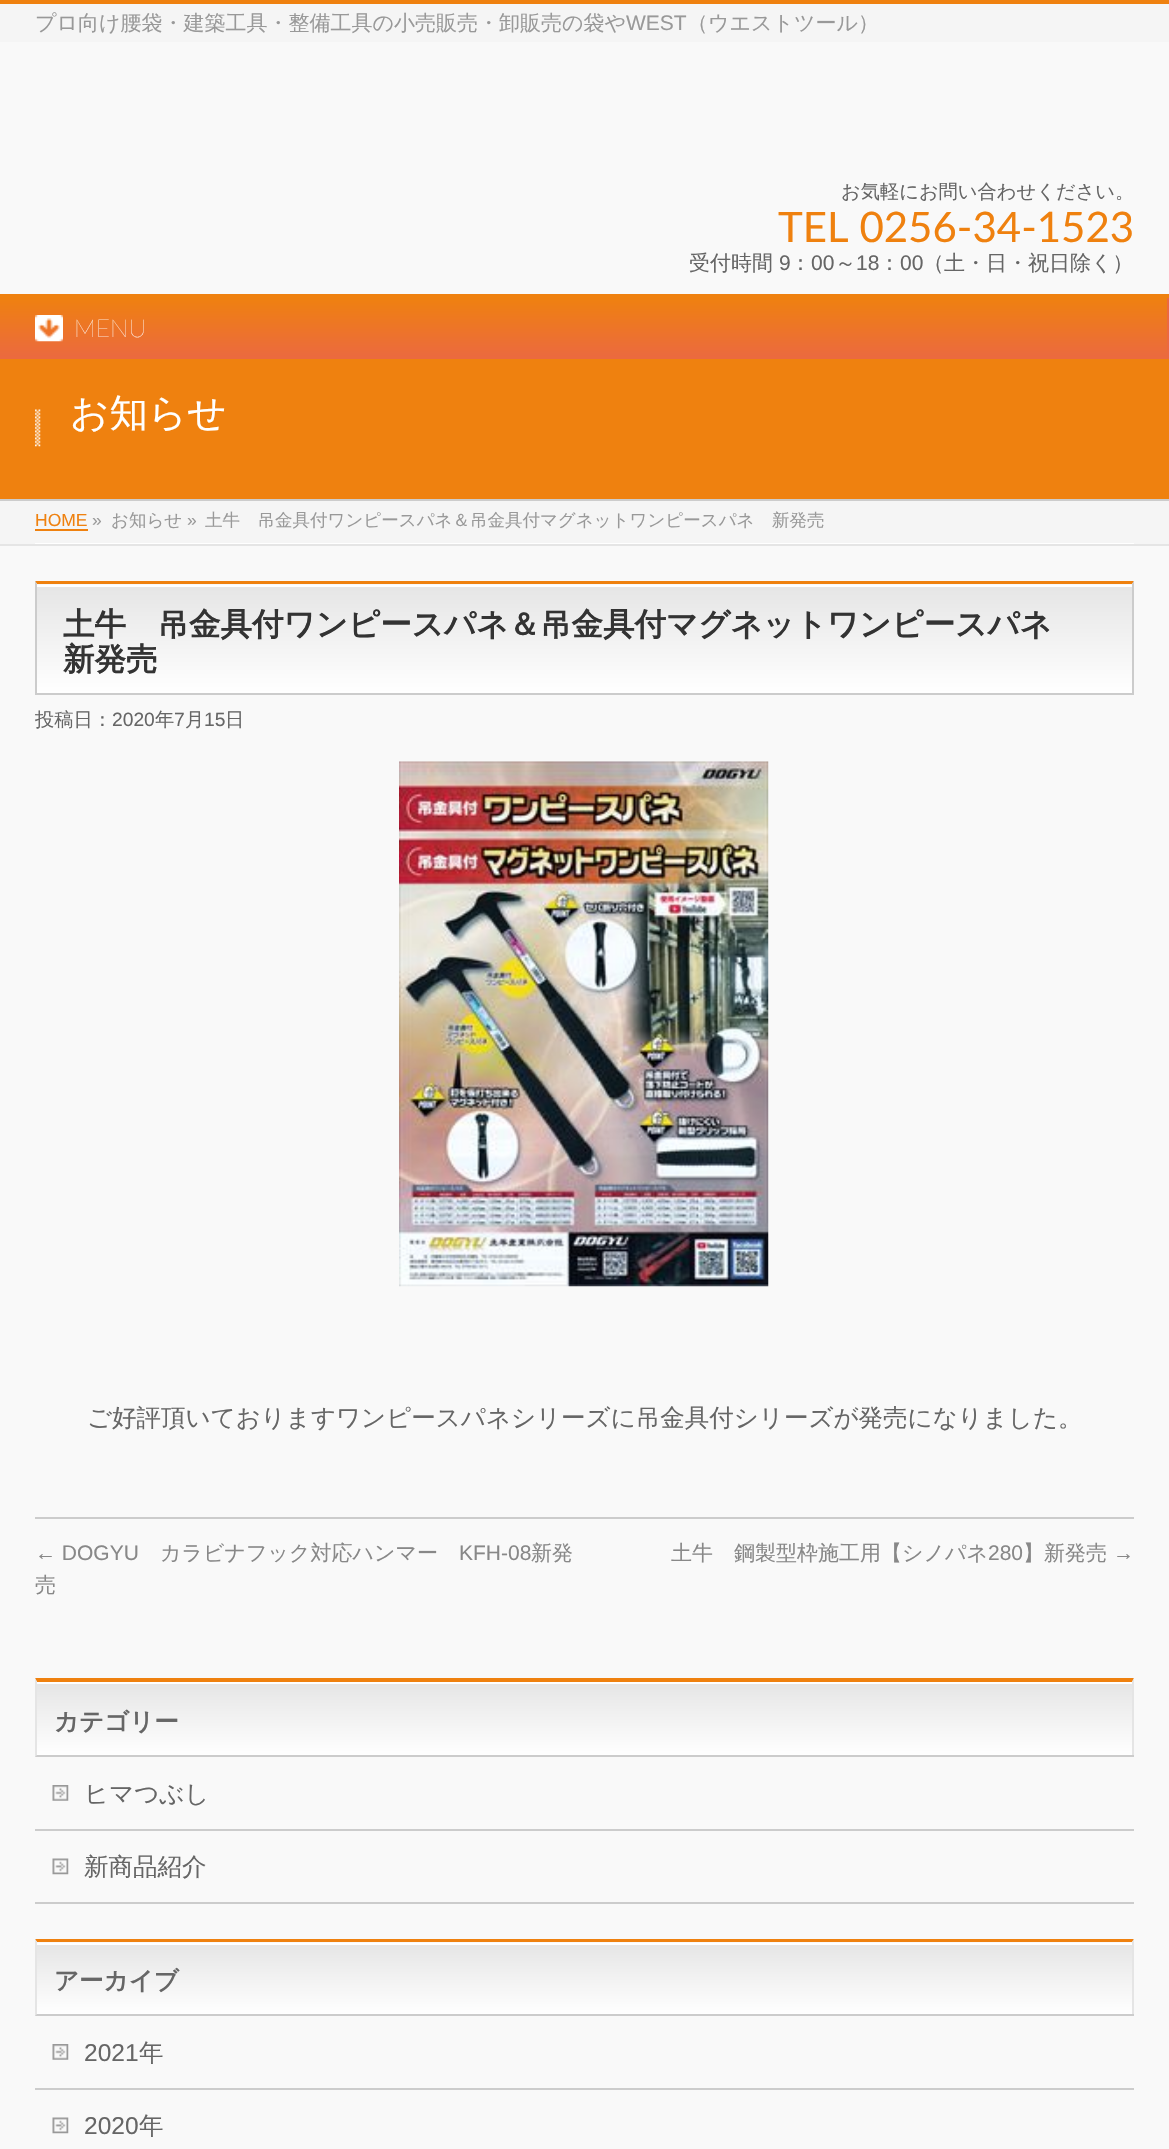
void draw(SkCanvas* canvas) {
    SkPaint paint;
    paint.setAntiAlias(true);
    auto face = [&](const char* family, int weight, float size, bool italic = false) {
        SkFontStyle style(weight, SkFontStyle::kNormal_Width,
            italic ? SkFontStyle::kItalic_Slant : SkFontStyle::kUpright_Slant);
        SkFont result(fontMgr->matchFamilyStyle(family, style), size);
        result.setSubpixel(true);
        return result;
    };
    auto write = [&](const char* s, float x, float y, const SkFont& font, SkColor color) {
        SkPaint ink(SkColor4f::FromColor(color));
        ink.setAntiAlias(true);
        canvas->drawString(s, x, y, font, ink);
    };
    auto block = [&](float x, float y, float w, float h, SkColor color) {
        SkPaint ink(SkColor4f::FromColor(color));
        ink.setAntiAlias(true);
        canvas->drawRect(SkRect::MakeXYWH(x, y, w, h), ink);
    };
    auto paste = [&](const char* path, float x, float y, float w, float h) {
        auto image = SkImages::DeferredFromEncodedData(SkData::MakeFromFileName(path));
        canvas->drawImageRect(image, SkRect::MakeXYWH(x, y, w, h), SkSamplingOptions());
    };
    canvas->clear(SkColorSetRGB(249, 249, 249));
    block(0, 4, 1169, 38, SkColorSetRGB(245, 245, 245));
    block(0, 0, 1169, 4, SkColorSetRGB(239, 129, 15));
    auto kFont1 = face("WenQuanYi Zen Hei", 500, 21);
    write("プロ向け腰袋・建築工具・整備工具の小売販売・卸販売の袋や", 35, 30, kFont1, SkColorSetRGB(153, 153, 153));
    auto kFont2 = face("Liberation Sans", 400, 21);
    write("WEST", 626, 30, kFont2, SkColorSetRGB(153, 153, 153));
    write("（ウエストツール）", 687, 30, kFont1, SkColorSetRGB(153, 153, 153));
    auto kFont3 = face("WenQuanYi Zen Hei", 500, 19.25f);
    write("お気軽にお問い合わせください。", 841, 198, kFont3, SkColorSetRGB(102, 102, 102));
    auto kFont4 = face("Lato", 400, 42);
    write("TEL 0256-34-1523", 778, 242, kFont4, SkColorSetRGB(239, 129, 15));
    write("受付時間", 689, 270, kFont1, SkColorSetRGB(102, 102, 102));
    write("9", 779, 270, kFont2, SkColorSetRGB(102, 102, 102));
    write("：", 790, 270, kFont1, SkColorSetRGB(102, 102, 102));
    write("00", 811, 270, kFont2, SkColorSetRGB(102, 102, 102));
    write("～", 835, 270, kFont1, SkColorSetRGB(102, 102, 102));
    write("18", 856, 270, kFont2, SkColorSetRGB(102, 102, 102));
    write("：", 879, 270, kFont1, SkColorSetRGB(102, 102, 102));
    write("00", 900, 270, kFont2, SkColorSetRGB(102, 102, 102));
    write("（土・日・祝日除く）", 923, 270, kFont1, SkColorSetRGB(102, 102, 102));
    block(0, 294, 1169, 4, SkColorSetRGB(239, 129, 15));
    {
        const SkColor colors[] = {SkColorSetRGB(239, 129, 15), SkColorSetRGB(235, 105, 64)};
        const float stops[] = {0, 1};
        const SkPoint ends[] = {{584, 297}, {584, 359}};
        paint.setShader(SkGradientShader::MakeLinear(ends, colors, stops, 2, SkTileMode::kClamp));
        paint.setAlpha(255);
    }
    canvas->drawRect(SkRect::MakeXYWH(0, 298, 1167, 61), paint);
    block(1167, 298, 2, 61, SkColorSetRGB(235, 105, 64));
    paste("pic1.png", 35, 315, 28, 27);
    auto kFont5 = face("Lato", 200, 24.5f);
    write("MENU", 74, 337, kFont5, SK_ColorWHITE);
    block(0, 359, 1169, 140, SkColorSetRGB(239, 129, 15));
    block(0, 499, 1169, 2, SkColorSetRGB(204, 204, 204));
    paste("pic2.png", 35, 409, 6, 38);
    auto kFont6 = face("WenQuanYi Zen Hei", 500, 38.5f);
    write("お知らせ", 70, 426, kFont6, SK_ColorWHITE);
    block(0, 501, 1169, 43, SkColorSetRGB(245, 245, 245));
    block(0, 544, 1169, 2, SkColorSetRGB(229, 229, 229));
    block(35, 543, 1099, 1, SK_ColorWHITE);
    auto kFont7 = face("Liberation Sans", 400, 17.5f);
    write("HOME", 35, 526, kFont7, SkColorSetRGB(239, 129, 15));
    block(35, 529, 53, 2, SkColorSetRGB(239, 129, 15));
    write("»", 92, 526, kFont7, SkColorSetRGB(153, 153, 153));
    auto kFont8 = face("WenQuanYi Zen Hei", 500, 17.5f);
    write("お知らせ", 111, 526, kFont8, SkColorSetRGB(153, 153, 153));
    write("»", 187, 526, kFont7, SkColorSetRGB(153, 153, 153));
    write("土牛　吊金具付ワンピースパネ＆吊金具付マグネットワンピースパネ　新発売", 205, 526, kFont8, SkColorSetRGB(153, 153, 153));
    {
        const SkColor colors[] = {SkColorSetRGB(229, 229, 229), SK_ColorWHITE};
        const float stops[] = {0, 1};
        const SkPoint ends[] = {{37, 585}, {37, 693}};
        paint.setShader(SkGradientShader::MakeLinear(ends, colors, stops, 2, SkTileMode::kClamp));
        paint.setAlpha(255);
    }
    canvas->drawRect(SkRect::MakeXYWH(37, 587, 1095, 106), paint);
    block(37, 585, 1095, 2, SK_ColorWHITE);
    paint.setShader(nullptr);
    paint.setColor(SkColorSetRGB(239, 129, 15));
    canvas->drawPath(SkPathBuilder().moveTo(35, 581).lineTo(1134, 581).lineTo(1132, 584).lineTo(37, 584).close().detach(), paint);
    paint.setColor(SkColorSetRGB(204, 204, 204));
    canvas->drawPath(SkPathBuilder().moveTo(1134, 581).lineTo(1134, 695).lineTo(1132, 693).lineTo(1132, 584).close().detach(), paint);
    block(35, 693, 1099, 2, SkColorSetRGB(204, 204, 204));
    canvas->drawPath(SkPathBuilder().moveTo(35, 695).lineTo(35, 581).lineTo(37, 584).lineTo(37, 693).close().detach(), paint);
    auto kFont9 = face("WenQuanYi Zen Hei", 700, 31.5f);
    write("土牛　吊金具付ワンピースパネ＆吊金具付マグネットワンピースパネ", 63, 635, kFont9, SkColorSetRGB(51, 51, 51));
    write("新発売", 63, 670, kFont9, SkColorSetRGB(51, 51, 51));
    write("投稿日：", 35, 726, kFont3, SkColorSetRGB(102, 102, 102));
    auto kFont10 = face("Liberation Sans", 400, 19.25f);
    write("2020", 112, 726, kFont10, SkColorSetRGB(102, 102, 102));
    write("年", 155, 726, kFont3, SkColorSetRGB(102, 102, 102));
    write("7", 174, 726, kFont10, SkColorSetRGB(102, 102, 102));
    write("月", 185, 726, kFont3, SkColorSetRGB(102, 102, 102));
    write("15", 204, 726, kFont10, SkColorSetRGB(102, 102, 102));
    write("日", 225, 726, kFont3, SkColorSetRGB(102, 102, 102));
    paste("pic3.png", 399, 761, 370, 526);
    auto kFont11 = face("WenQuanYi Zen Hei", 500, 24.5f);
    write("ご好評頂いておりますワンピースパネシリーズに吊金具付シリーズが発売になりました。", 87, 1426, kFont11, SkColorSetRGB(102, 102, 102));
    block(35, 1517, 1099, 2, SkColorSetRGB(204, 204, 204));
    write("← DOGYU", 35, 1560, kFont2, SkColorSetRGB(136, 136, 136));
    write("カラビナフック対応ハンマー", 160, 1560, kFont1, SkColorSetRGB(136, 136, 136));
    write("KFH-08", 459, 1560, kFont2, SkColorSetRGB(136, 136, 136));
    write("新発", 531, 1560, kFont1, SkColorSetRGB(136, 136, 136));
    write("売", 35, 1592, kFont1, SkColorSetRGB(136, 136, 136));
    write("土牛　鋼製型枠施工用【シノパネ", 671, 1560, kFont1, SkColorSetRGB(136, 136, 136));
    write("280", 988, 1560, kFont2, SkColorSetRGB(136, 136, 136));
    write("】新発売", 1023, 1560, kFont1, SkColorSetRGB(136, 136, 136));
    write("→", 1113, 1560, kFont2, SkColorSetRGB(136, 136, 136));
    {
        const SkColor colors[] = {SkColorSetRGB(229, 229, 229), SK_ColorWHITE};
        const float stops[] = {0, 1};
        const SkPoint ends[] = {{37, 1682}, {37, 1755}};
        paint.setShader(SkGradientShader::MakeLinear(ends, colors, stops, 2, SkTileMode::kClamp));
        paint.setAlpha(255);
    }
    canvas->drawRect(SkRect::MakeXYWH(37, 1684, 1095, 71), paint);
    block(37, 1682, 1095, 2, SK_ColorWHITE);
    paint.setShader(nullptr);
    paint.setColor(SkColorSetRGB(239, 129, 15));
    canvas->drawPath(SkPathBuilder().moveTo(35, 1678).lineTo(1134, 1678).lineTo(1132, 1682).lineTo(37, 1682).close().detach(), paint);
    paint.setColor(SkColorSetRGB(229, 229, 229));
    canvas->drawPath(SkPathBuilder().moveTo(1134, 1678).lineTo(1134, 1757).lineTo(1132, 1755).lineTo(1132, 1682).close().detach(), paint);
    block(35, 1755, 1099, 2, SkColorSetRGB(204, 204, 204));
    canvas->drawPath(SkPathBuilder().moveTo(35, 1757).lineTo(35, 1678).lineTo(37, 1682).lineTo(37, 1755).close().detach(), paint);
    auto kFont12 = face("WenQuanYi Zen Hei", 700, 24.5f);
    write("カテゴリー", 54, 1730, kFont12, SkColorSetRGB(102, 102, 102));
    block(35, 1829, 1099, 2, SkColorSetRGB(204, 204, 204));
    paste("pic4.png", 52, 1785, 17, 16);
    write("ヒマつぶし", 84, 1802, kFont11, SkColorSetRGB(102, 102, 102));
    block(35, 1902, 1099, 2, SkColorSetRGB(204, 204, 204));
    paste("pic5.png", 52, 1858, 17, 17);
    write("新商品紹介", 84, 1875, kFont11, SkColorSetRGB(102, 102, 102));
    {
        const SkColor colors[] = {SkColorSetRGB(229, 229, 229), SK_ColorWHITE};
        const float stops[] = {0, 1};
        const SkPoint ends[] = {{37, 1943}, {37, 2014}};
        paint.setShader(SkGradientShader::MakeLinear(ends, colors, stops, 2, SkTileMode::kClamp));
        paint.setAlpha(255);
    }
    canvas->drawRect(SkRect::MakeXYWH(37, 1945, 1095, 69), paint);
    block(37, 1943, 1095, 2, SK_ColorWHITE);
    paint.setShader(nullptr);
    paint.setColor(SkColorSetRGB(239, 129, 15));
    canvas->drawPath(SkPathBuilder().moveTo(35, 1939).lineTo(1134, 1939).lineTo(1132, 1942).lineTo(37, 1942).close().detach(), paint);
    paint.setColor(SkColorSetRGB(229, 229, 229));
    canvas->drawPath(SkPathBuilder().moveTo(1134, 1939).lineTo(1134, 2016).lineTo(1132, 2014).lineTo(1132, 1942).close().detach(), paint);
    block(35, 2014, 1099, 2, SkColorSetRGB(204, 204, 204));
    canvas->drawPath(SkPathBuilder().moveTo(35, 2016).lineTo(35, 1939).lineTo(37, 1942).lineTo(37, 2014).close().detach(), paint);
    write("アーカイブ", 54, 1989, kFont12, SkColorSetRGB(102, 102, 102));
    block(35, 2088, 1099, 2, SkColorSetRGB(204, 204, 204));
    paste("pic4.png", 52, 2044, 17, 16);
    auto kFont13 = face("Liberation Sans", 400, 24.5f);
    write("2021", 84, 2061, kFont13, SkColorSetRGB(102, 102, 102));
    write("年", 139, 2061, kFont11, SkColorSetRGB(102, 102, 102));
    paste("pic5.png", 52, 2117, 17, 17);
    write("2020", 84, 2134, kFont13, SkColorSetRGB(102, 102, 102));
    write("年", 139, 2134, kFont11, SkColorSetRGB(102, 102, 102));
}
